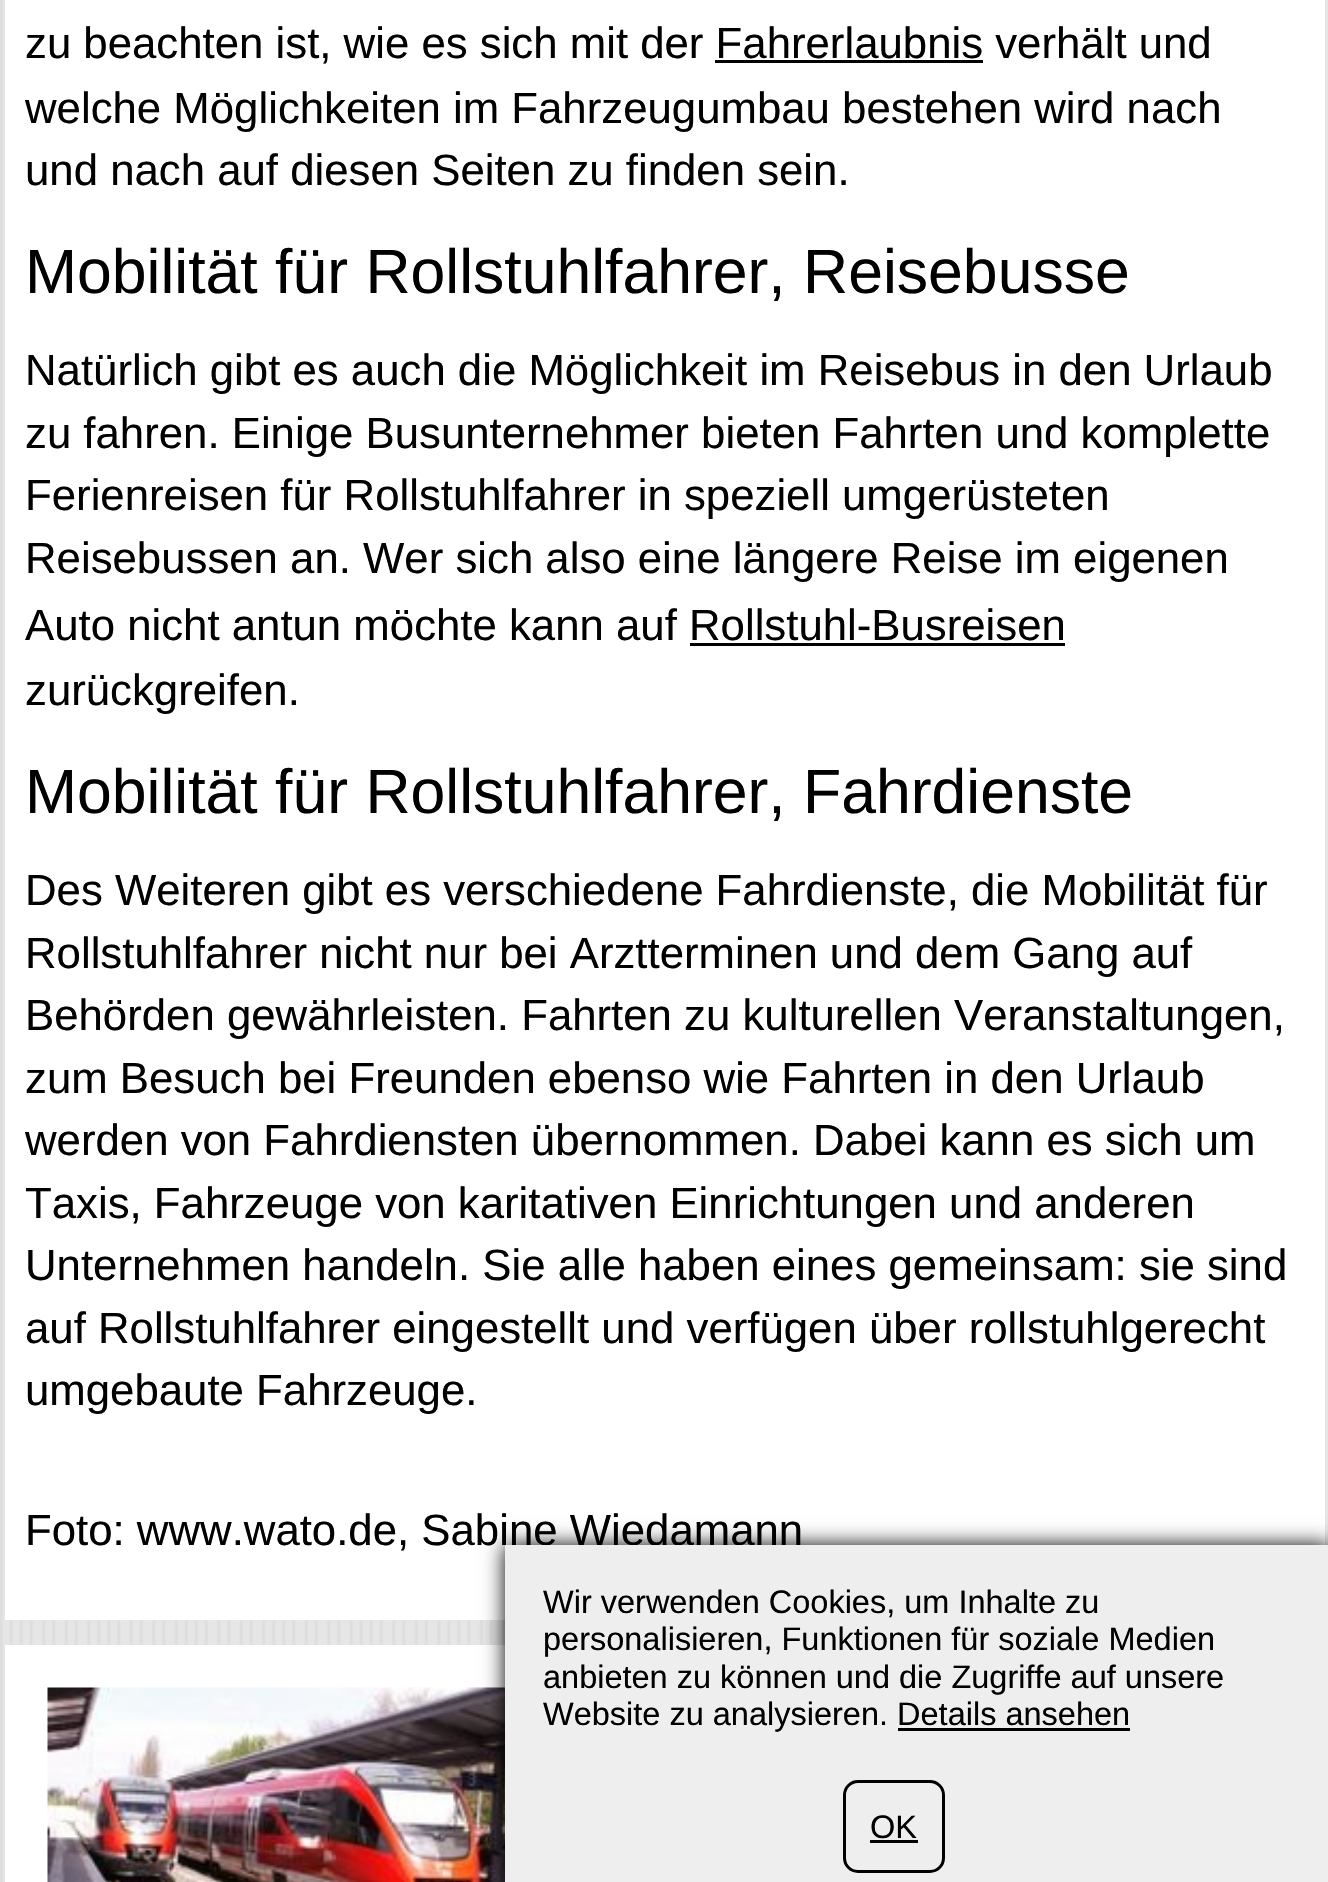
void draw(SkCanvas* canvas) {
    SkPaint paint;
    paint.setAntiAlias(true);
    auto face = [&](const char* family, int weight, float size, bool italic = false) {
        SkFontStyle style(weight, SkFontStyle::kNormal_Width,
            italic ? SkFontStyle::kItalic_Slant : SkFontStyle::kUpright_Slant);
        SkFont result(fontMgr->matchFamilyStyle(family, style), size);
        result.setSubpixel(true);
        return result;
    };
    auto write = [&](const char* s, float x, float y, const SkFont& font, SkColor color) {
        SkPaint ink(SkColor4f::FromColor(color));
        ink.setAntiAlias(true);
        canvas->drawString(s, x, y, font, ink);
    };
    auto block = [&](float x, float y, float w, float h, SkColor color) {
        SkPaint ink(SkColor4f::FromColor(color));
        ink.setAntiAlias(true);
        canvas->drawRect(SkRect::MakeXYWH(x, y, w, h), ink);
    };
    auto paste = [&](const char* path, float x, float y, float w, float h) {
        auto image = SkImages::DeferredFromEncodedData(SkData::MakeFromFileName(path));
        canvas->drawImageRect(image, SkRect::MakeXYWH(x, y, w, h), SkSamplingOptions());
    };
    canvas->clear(SK_ColorWHITE);
    paste("pic1.png", 0, 0, 1328, 1882);
    block(5, 0, 1320, 1620, SK_ColorWHITE);
    auto kFont1 = face("Liberation Sans", 400, 43.75f);
    write("zu beachten ist, wie es sich mit der Fahrerlaubnis verhält und", 25, 58, kFont1, SK_ColorBLACK);
    block(715, 60, 268, 3, SK_ColorBLACK);
    write("welche Möglichkeiten im Fahrzeugumbau bestehen wird nach", 25, 123, kFont1, SK_ColorBLACK);
    write("und nach auf diesen Seiten zu finden sein.", 25, 185, kFont1, SK_ColorBLACK);
    auto kFont2 = face("Liberation Sans", 400, 62.5f);
    write("Mobilität für Rollstuhlfahrer, Reisebusse", 25, 293, kFont2, SK_ColorBLACK);
    write("Natürlich gibt es auch die Möglichkeit im Reisebus in den Urlaub", 25, 385, kFont1, SK_ColorBLACK);
    write("zu fahren. Einige Busunternehmer bieten Fahrten und komplette", 25, 448, kFont1, SK_ColorBLACK);
    write("Ferienreisen für Rollstuhlfahrer in speziell umgerüsteten", 25, 510, kFont1, SK_ColorBLACK);
    write("Reisebussen an. Wer sich also eine längere Reise im eigenen", 25, 573, kFont1, SK_ColorBLACK);
    write("Auto nicht antun möchte kann auf Rollstuhl-Busreisen", 25, 640, kFont1, SK_ColorBLACK);
    block(690, 643, 375, 3, SK_ColorBLACK);
    write("zurückgreifen.", 25, 705, kFont1, SK_ColorBLACK);
    write("Mobilität für Rollstuhlfahrer, Fahrdienste", 25, 813, kFont2, SK_ColorBLACK);
    write("Des Weiteren gibt es verschiedene Fahrdienste, die Mobilität für", 25, 905, kFont1, SK_ColorBLACK);
    write("Rollstuhlfahrer nicht nur bei Arztterminen und dem Gang auf", 25, 968, kFont1, SK_ColorBLACK);
    write("Behörden gewährleisten. Fahrten zu kulturellen Veranstaltungen,", 25, 1030, kFont1, SK_ColorBLACK);
    write("zum Besuch bei Freunden ebenso wie Fahrten in den Urlaub", 25, 1093, kFont1, SK_ColorBLACK);
    write("werden von Fahrdiensten übernommen. Dabei kann es sich um", 25, 1155, kFont1, SK_ColorBLACK);
    write("Taxis, Fahrzeuge von karitativen Einrichtungen und anderen", 25, 1218, kFont1, SK_ColorBLACK);
    write("Unternehmen handeln. Sie alle haben eines gemeinsam: sie sind", 25, 1280, kFont1, SK_ColorBLACK);
    write("auf Rollstuhlfahrer eingestellt und verfügen über rollstuhlgerecht", 25, 1343, kFont1, SK_ColorBLACK);
    write("umgebaute Fahrzeuge.", 25, 1405, kFont1, SK_ColorBLACK);
    write("Foto: www.wato.de, Sabine Wiedamann", 25, 1545, kFont1, SK_ColorBLACK);
    block(5, 1645, 500, 237, SK_ColorWHITE);
    paste("pic2.png", 47, 1687, 458, 195);
    paint.setColor(SK_ColorBLACK);
    paint.setMaskFilter(SkMaskFilter::MakeBlur(kNormal_SkBlurStyle, 10));
    canvas->drawRect(SkRect::MakeXYWH(505, 1545, 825, 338), paint);
    paint.setMaskFilter(nullptr);
    block(505, 1545, 823, 337, SkColorSetRGB(238, 238, 238));
    auto kFont3 = face("Liberation Sans", 400, 32.5f);
    write("Wir verwenden Cookies, um Inhalte zu", 543, 1613, kFont3, SK_ColorBLACK);
    write("personalisieren, Funktionen für soziale Medien", 543, 1650, kFont3, SK_ColorBLACK);
    write("anbieten zu können und die Zugriffe auf unsere", 543, 1688, kFont3, SK_ColorBLACK);
    write("Website zu analysieren. Details ansehen", 543, 1725, kFont3, SK_ColorBLACK);
    block(898, 1728, 232, 3, SK_ColorBLACK);
    paint.setStyle(SkPaint::kStroke_Style);
    paint.setStrokeWidth(3);
    canvas->drawRoundRect(SkRect::MakeXYWH(844.5f, 1781.5f, 99, 90), 13.5f, 13.5f, paint);
    write("OK", 870, 1838, kFont3, SK_ColorBLACK);
    block(870, 1840, 48, 3, SK_ColorBLACK);
}
